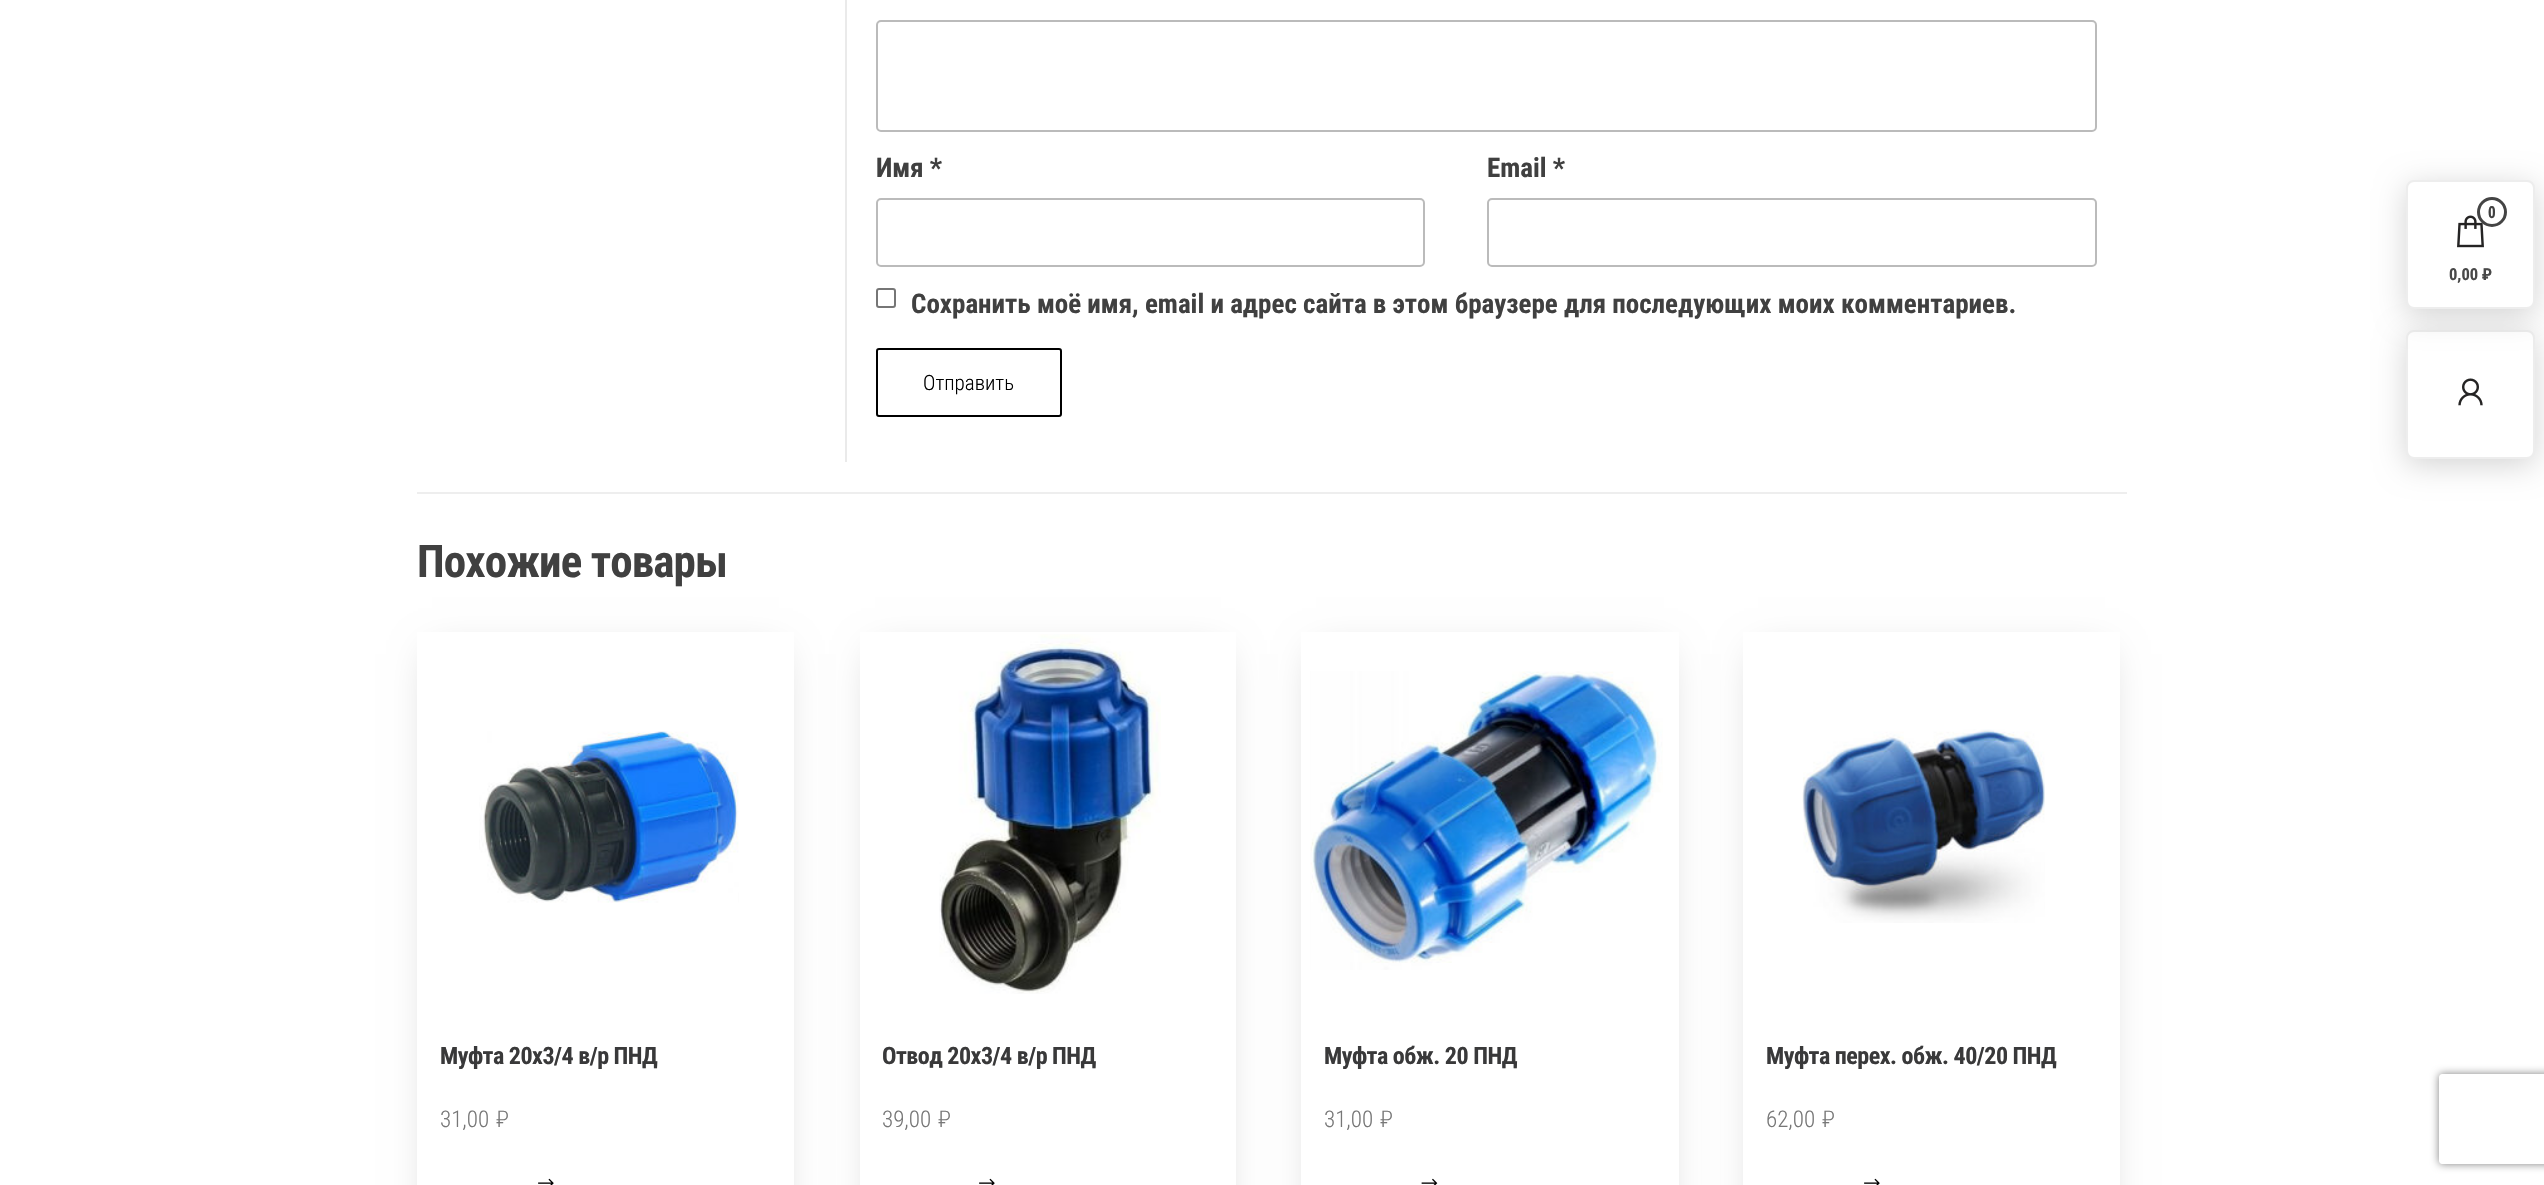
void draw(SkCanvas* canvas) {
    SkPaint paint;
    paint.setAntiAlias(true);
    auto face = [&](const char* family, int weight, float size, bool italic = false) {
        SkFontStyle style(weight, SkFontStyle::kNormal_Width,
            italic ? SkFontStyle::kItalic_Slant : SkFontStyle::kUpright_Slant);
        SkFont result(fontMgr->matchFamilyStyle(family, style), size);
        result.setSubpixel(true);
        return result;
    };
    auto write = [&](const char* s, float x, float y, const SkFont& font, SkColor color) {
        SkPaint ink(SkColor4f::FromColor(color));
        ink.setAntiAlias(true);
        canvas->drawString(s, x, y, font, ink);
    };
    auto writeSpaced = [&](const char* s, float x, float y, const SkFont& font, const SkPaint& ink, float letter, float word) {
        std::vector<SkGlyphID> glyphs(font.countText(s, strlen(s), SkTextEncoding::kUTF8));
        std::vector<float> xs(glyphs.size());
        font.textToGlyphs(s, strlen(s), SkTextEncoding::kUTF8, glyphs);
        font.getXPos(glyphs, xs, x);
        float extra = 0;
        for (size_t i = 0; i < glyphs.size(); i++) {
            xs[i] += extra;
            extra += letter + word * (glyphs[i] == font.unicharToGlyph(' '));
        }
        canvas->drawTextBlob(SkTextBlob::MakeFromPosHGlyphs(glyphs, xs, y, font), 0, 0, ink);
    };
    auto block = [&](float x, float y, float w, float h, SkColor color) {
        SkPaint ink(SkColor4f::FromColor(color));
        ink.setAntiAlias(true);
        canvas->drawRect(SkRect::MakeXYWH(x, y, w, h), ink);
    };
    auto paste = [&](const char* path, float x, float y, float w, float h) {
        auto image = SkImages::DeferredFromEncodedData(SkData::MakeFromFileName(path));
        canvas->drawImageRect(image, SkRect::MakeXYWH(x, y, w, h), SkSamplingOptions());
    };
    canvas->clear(SK_ColorWHITE);
    block(417, 492, 1710, 2, SkColorSetRGB(238, 238, 238));
    block(845, 0, 2, 462, SkColorSetRGB(234, 234, 234));
    paint.setStyle(SkPaint::kStroke_Style);
    paint.setStrokeWidth(2);
    paint.setColor(SkColorSetRGB(187, 187, 187));
    canvas->drawRoundRect(SkRect::MakeXYWH(877, 21, 1219, 110), 4, 4, paint);
    auto kFont1 = face("Roboto Condensed", 700, 27);
    write("Имя *", 876, 177, kFont1, SkColorSetRGB(64, 64, 64));
    canvas->drawRoundRect(SkRect::MakeXYWH(877, 199, 547, 67), 4, 4, paint);
    write("Email *", 1487, 177, kFont1, SkColorSetRGB(64, 64, 64));
    canvas->drawRoundRect(SkRect::MakeXYWH(1488, 199, 608, 67), 4, 4, paint);
    paint.setColor(SkColorSetRGB(118, 118, 118));
    canvas->drawRoundRect(SkRect::MakeXYWH(877, 289, 18, 18), 2, 2, paint);
    write("Сохранить моё имя, email и адрес сайта в этом браузере для последующих моих комментариев.", 911, 313, kFont1, SkColorSetRGB(64, 64, 64));
    paint.setColor(SK_ColorBLACK);
    canvas->drawRoundRect(SkRect::MakeXYWH(877, 349, 184, 67), 2, 2, paint);
    auto kFont2 = face("Roboto Condensed", 300, 21);
    write("Отправить", 923, 390, kFont2, SK_ColorBLACK);
    auto kFont3 = face("Roboto Condensed", 700, 45);
    paint.setStyle(SkPaint::kFill_Style);
    paint.setColor(SkColorSetRGB(64, 64, 64));
    writeSpaced("Похожие товары", 417, 577, kFont3, paint, -0.9f, 0);
    paint.setColor(SkColorSetARGB(51, 0, 0, 0));
    paint.setMaskFilter(SkMaskFilter::MakeBlur(kNormal_SkBlurStyle, 19));
    canvas->drawRect(SkRect::MakeXYWH(432, 654, 347, 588), paint);
    paint.setMaskFilter(nullptr);
    block(417, 632, 377, 553, SK_ColorWHITE);
    paste("pic1.png", 479, 731, 260, 172);
    auto kFont4 = face("Roboto Condensed", 700, 24);
    paint.setColor(SkColorSetRGB(57, 57, 58));
    writeSpaced("Муфта 20х3/4 в/р ПНД", 440, 1064, kFont4, paint, -0.5f, 0);
    auto kFont5 = face("Roboto Condensed", 300, 23);
    write("31,00", 440, 1127, kFont5, SkColorSetRGB(119, 119, 119));
    write("₽", 496, 1127, kFont5, SkColorSetRGB(119, 119, 119));
    paste("pic2.png", 538, 1178, 16, 7);
    canvas->save();
    canvas->clipPath(SkPathBuilder(SkPathFillType::kEvenOdd).moveTo(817, 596).lineTo(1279, 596).lineTo(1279, 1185).lineTo(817, 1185).close().moveTo(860, 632).lineTo(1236, 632).lineTo(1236, 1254).lineTo(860, 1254).close().detach(), true);
    paint.setColor(SkColorSetARGB(51, 0, 0, 0));
    paint.setMaskFilter(SkMaskFilter::MakeBlur(kNormal_SkBlurStyle, 19));
    canvas->drawRect(SkRect::MakeXYWH(875, 654, 346, 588), paint);
    paint.setMaskFilter(nullptr);
    canvas->restore();
    paste("pic3.png", 939, 634, 222, 360);
    paint.setColor(SkColorSetRGB(57, 57, 58));
    writeSpaced("Отвод 20х3/4 в/р ПНД", 882, 1064, kFont4, paint, -0.5f, 0);
    write("39,00", 882, 1127, kFont5, SkColorSetRGB(119, 119, 119));
    write("₽", 938, 1127, kFont5, SkColorSetRGB(119, 119, 119));
    paste("pic2.png", 979, 1178, 16, 7);
    paint.setColor(SkColorSetARGB(51, 0, 0, 0));
    paint.setMaskFilter(SkMaskFilter::MakeBlur(kNormal_SkBlurStyle, 19));
    canvas->drawRect(SkRect::MakeXYWH(1316, 654, 348, 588), paint);
    paint.setMaskFilter(nullptr);
    block(1301, 632, 378, 553, SK_ColorWHITE);
    paste("pic4.png", 1310, 671, 353, 299);
    paint.setColor(SkColorSetRGB(57, 57, 58));
    writeSpaced("Муфта обж. 20 ПНД", 1324, 1064, kFont4, paint, -0.5f, 0);
    write("31,00", 1324, 1127, kFont5, SkColorSetRGB(119, 119, 119));
    write("₽", 1380, 1127, kFont5, SkColorSetRGB(119, 119, 119));
    paste("pic5.png", 1421, 1178, 17, 7);
    paint.setColor(SkColorSetARGB(51, 0, 0, 0));
    paint.setMaskFilter(SkMaskFilter::MakeBlur(kNormal_SkBlurStyle, 19));
    canvas->drawRect(SkRect::MakeXYWH(1758, 654, 347, 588), paint);
    paint.setMaskFilter(nullptr);
    block(1743, 632, 377, 553, SK_ColorWHITE);
    paste("pic6.png", 1802, 729, 243, 194);
    paint.setColor(SkColorSetRGB(57, 57, 58));
    writeSpaced("Муфта перех. обж. 40/20 ПНД", 1766, 1064, kFont4, paint, -0.5f, 0);
    write("62,00", 1766, 1127, kFont5, SkColorSetRGB(119, 119, 119));
    write("₽", 1822, 1127, kFont5, SkColorSetRGB(119, 119, 119));
    paste("pic2.png", 1864, 1178, 16, 7);
    paint.setColor(SkColorSetARGB(43, 0, 0, 0));
    paint.setMaskFilter(SkMaskFilter::MakeBlur(kNormal_SkBlurStyle, 15));
    canvas->drawRoundRect(SkRect::MakeXYWH(2406, 336, 129, 129), 8, 8, paint);
    paint.setMaskFilter(nullptr);
    paint.setColor(SK_ColorWHITE);
    canvas->drawRoundRect(SkRect::MakeXYWH(2407, 331, 127, 127), 7, 7, paint);
    paint.setStyle(SkPaint::kStroke_Style);
    paint.setColor(SkColorSetRGB(237, 237, 237));
    canvas->drawRoundRect(SkRect::MakeXYWH(2407, 331, 127, 127), 7, 7, paint);
    paint.setStyle(SkPaint::kFill_Style);
    paint.setColor(SkColorSetARGB(43, 0, 0, 0));
    paint.setMaskFilter(SkMaskFilter::MakeBlur(kNormal_SkBlurStyle, 15));
    canvas->drawRoundRect(SkRect::MakeXYWH(2406, 186, 129, 129), 8, 8, paint);
    paint.setMaskFilter(nullptr);
    paint.setColor(SK_ColorWHITE);
    canvas->drawRoundRect(SkRect::MakeXYWH(2407, 181, 127, 127), 7, 7, paint);
    paint.setStyle(SkPaint::kStroke_Style);
    paint.setColor(SkColorSetRGB(237, 237, 237));
    canvas->drawRoundRect(SkRect::MakeXYWH(2407, 181, 127, 127), 7, 7, paint);
    paste("pic7.png", 2457, 215, 27, 33);
    paint.setStyle(SkPaint::kFill_Style);
    paint.setColor(SK_ColorWHITE);
    canvas->drawCircle(2492, 212, 13.5f, paint);
    paint.setStyle(SkPaint::kStroke_Style);
    paint.setStrokeWidth(3);
    paint.setColor(SkColorSetRGB(68, 68, 68));
    canvas->drawCircle(2492, 212, 13.5f, paint);
    auto kFont6 = face("Open Sans Condensed", 700, 16.5f);
    write("0", 2488, 218, kFont6, SkColorSetRGB(64, 64, 64));
    auto kFont7 = face("Roboto Condensed", 700, 16.5f);
    write("0,00 ₽", 2449, 280, kFont7, SkColorSetRGB(72, 72, 72));
    paste("pic8.png", 2458, 378, 25, 28);
    canvas->save();
    canvas->clipPath(SkPathBuilder(SkPathFillType::kEvenOdd).moveTo(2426, 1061).lineTo(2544, 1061).lineTo(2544, 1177).lineTo(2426, 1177).close().moveTo(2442, 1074).lineTo(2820, 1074).cubicTo(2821.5f, 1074, 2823, 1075.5f, 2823, 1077).lineTo(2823, 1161).cubicTo(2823, 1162.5f, 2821.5f, 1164, 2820, 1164).lineTo(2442, 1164).cubicTo(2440.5f, 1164, 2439, 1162.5f, 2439, 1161).lineTo(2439, 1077).cubicTo(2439, 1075.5f, 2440.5f, 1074, 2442, 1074).close().detach(), true);
    paint.setStyle(SkPaint::kFill_Style);
    paint.setColor(SkColorSetRGB(128, 128, 128));
    paint.setMaskFilter(SkMaskFilter::MakeBlur(kNormal_SkBlurStyle, 4));
    canvas->drawRoundRect(SkRect::MakeXYWH(2439, 1074, 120, 90), 3, 3, paint);
    paint.setMaskFilter(nullptr);
    canvas->restore();
}
